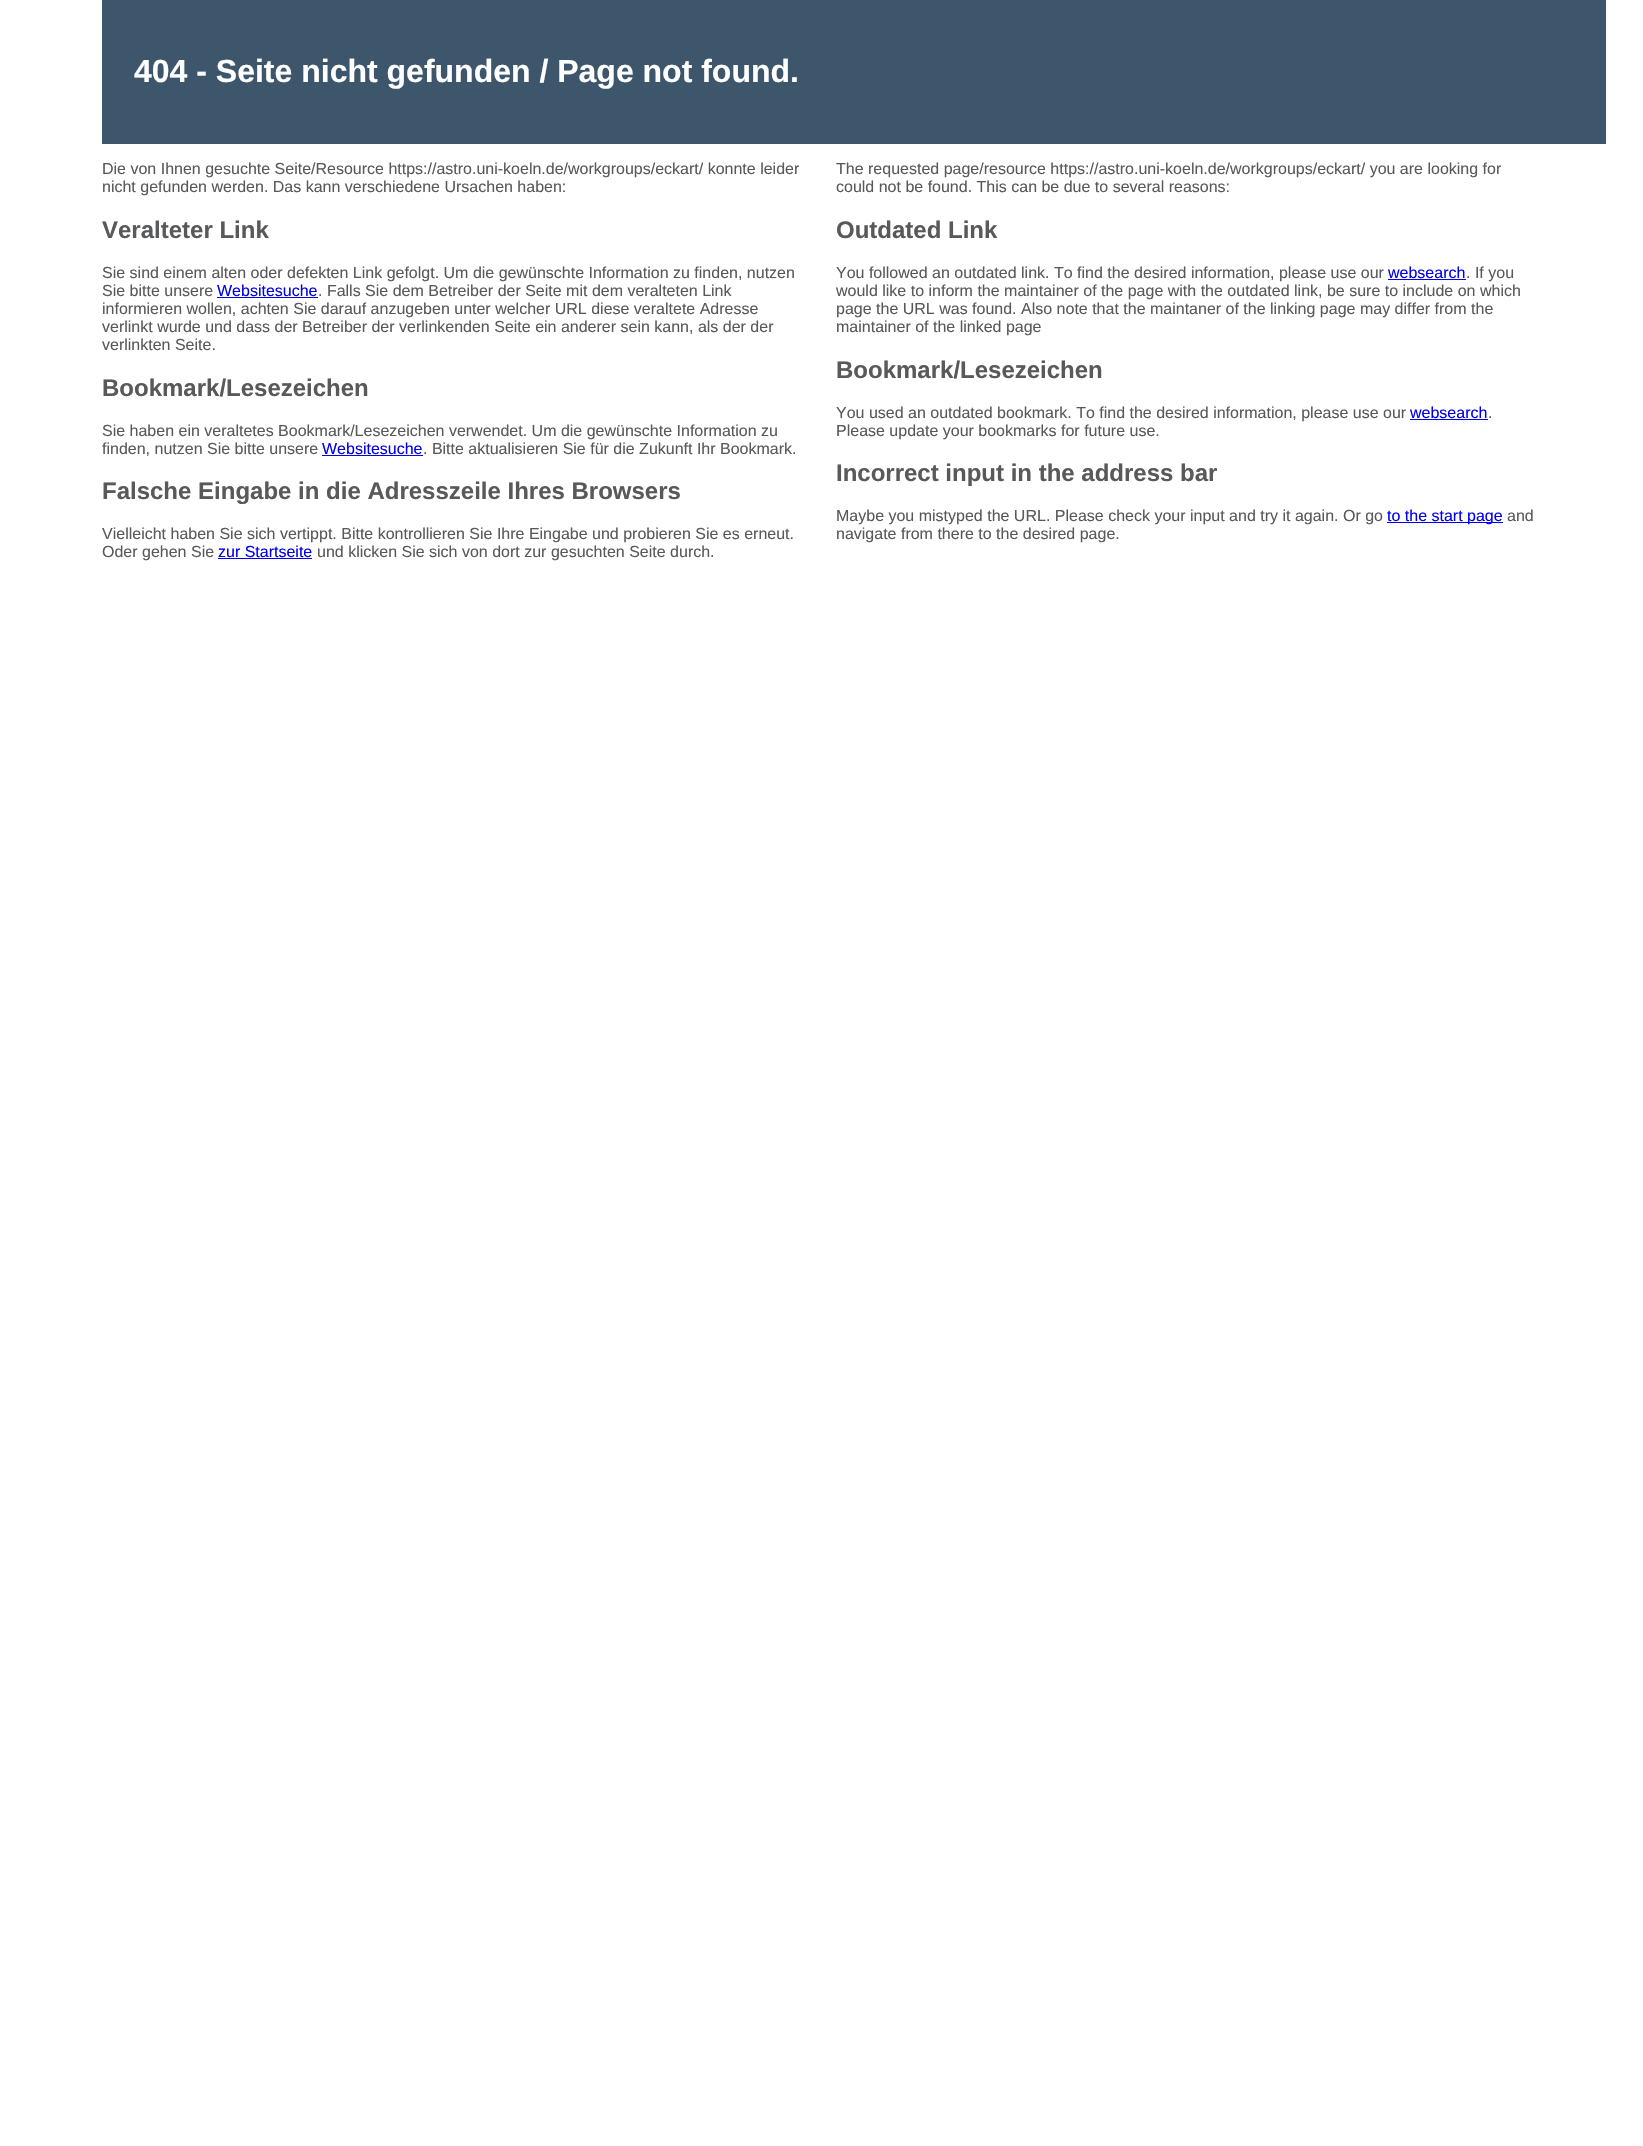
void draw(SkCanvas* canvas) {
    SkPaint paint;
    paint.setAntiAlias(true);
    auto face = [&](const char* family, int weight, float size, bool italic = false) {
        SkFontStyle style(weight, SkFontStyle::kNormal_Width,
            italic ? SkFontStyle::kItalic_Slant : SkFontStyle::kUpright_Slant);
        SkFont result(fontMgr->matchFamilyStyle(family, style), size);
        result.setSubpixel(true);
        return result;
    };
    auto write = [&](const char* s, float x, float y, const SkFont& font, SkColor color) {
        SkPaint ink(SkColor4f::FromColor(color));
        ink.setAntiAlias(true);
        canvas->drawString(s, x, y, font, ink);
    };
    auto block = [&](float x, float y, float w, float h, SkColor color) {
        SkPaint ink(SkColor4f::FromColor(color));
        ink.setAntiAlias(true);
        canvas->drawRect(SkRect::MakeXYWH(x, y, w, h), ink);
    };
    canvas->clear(SK_ColorWHITE);
    block(102, 0, 1504, 144, SkColorSetRGB(62, 86, 108));
    auto kFont1 = face("Liberation Sans", 700, 32);
    write("404 - Seite nicht gefunden / Page not found.", 134, 82, kFont1, SK_ColorWHITE);
    auto kFont2 = face("Liberation Sans", 400, 16);
    write("Die von Ihnen gesuchte Seite/Resource https://astro.uni-koeln.de/workgroups/eckart/ konnte leider", 102, 174, kFont2, SkColorSetRGB(88, 89, 91));
    write("nicht gefunden werden. Das kann verschiedene Ursachen haben:", 102, 192, kFont2, SkColorSetRGB(88, 89, 91));
    auto kFont3 = face("Liberation Sans", 700, 24);
    write("Veralteter Link", 102, 238, kFont3, SkColorSetRGB(88, 89, 91));
    write("Sie sind einem alten oder defekten Link gefolgt. Um die gewünschte Information zu finden, nutzen", 102, 278, kFont2, SkColorSetRGB(88, 89, 91));
    write("Sie bitte unsere", 102, 296, kFont2, SkColorSetRGB(88, 89, 91));
    write("Websitesuche", 217, 296, kFont2, SkColorSetRGB(0, 0, 238));
    block(217, 297, 101, 1, SkColorSetRGB(0, 0, 238));
    write(". Falls Sie dem Betreiber der Seite mit dem veralteten Link", 318, 296, kFont2, SkColorSetRGB(88, 89, 91));
    write("informieren wollen, achten Sie darauf anzugeben unter welcher URL diese veraltete Adresse", 102, 314, kFont2, SkColorSetRGB(88, 89, 91));
    write("verlinkt wurde und dass der Betreiber der verlinkenden Seite ein anderer sein kann, als der der", 102, 332, kFont2, SkColorSetRGB(88, 89, 91));
    write("verlinkten Seite.", 102, 350, kFont2, SkColorSetRGB(88, 89, 91));
    write("Bookmark/Lesezeichen", 102, 396, kFont3, SkColorSetRGB(88, 89, 91));
    write("Sie haben ein veraltetes Bookmark/Lesezeichen verwendet. Um die gewünschte Information zu", 102, 436, kFont2, SkColorSetRGB(88, 89, 91));
    write("finden, nutzen Sie bitte unsere", 102, 454, kFont2, SkColorSetRGB(88, 89, 91));
    write("Websitesuche", 322, 454, kFont2, SkColorSetRGB(0, 0, 238));
    block(322, 455, 101, 1, SkColorSetRGB(0, 0, 238));
    write(". Bitte aktualisieren Sie für die Zukunft Ihr Bookmark.", 423, 454, kFont2, SkColorSetRGB(88, 89, 91));
    write("Falsche Eingabe in die Adresszeile Ihres Browsers", 102, 499, kFont3, SkColorSetRGB(88, 89, 91));
    write("Vielleicht haben Sie sich vertippt. Bitte kontrollieren Sie Ihre Eingabe und probieren Sie es erneut.", 102, 539, kFont2, SkColorSetRGB(88, 89, 91));
    write("Oder gehen Sie", 102, 557, kFont2, SkColorSetRGB(88, 89, 91));
    write("zur Startseite", 218, 557, kFont2, SkColorSetRGB(0, 0, 238));
    block(218, 558, 94, 1, SkColorSetRGB(0, 0, 238));
    write("und klicken Sie sich von dort zur gesuchten Seite durch.", 317, 557, kFont2, SkColorSetRGB(88, 89, 91));
    write("The requested page/resource https://astro.uni-koeln.de/workgroups/eckart/ you are looking for", 836, 174, kFont2, SkColorSetRGB(88, 89, 91));
    write("could not be found. This can be due to several reasons:", 836, 192, kFont2, SkColorSetRGB(88, 89, 91));
    write("Outdated Link", 836, 238, kFont3, SkColorSetRGB(88, 89, 91));
    write("You followed an outdated link. To find the desired information, please use our", 836, 278, kFont2, SkColorSetRGB(88, 89, 91));
    write("websearch", 1388, 278, kFont2, SkColorSetRGB(0, 0, 238));
    block(1388, 279, 78, 1, SkColorSetRGB(0, 0, 238));
    write(". If you", 1466, 278, kFont2, SkColorSetRGB(88, 89, 91));
    write("would like to inform the maintainer of the page with the outdated link, be sure to include on which", 836, 296, kFont2, SkColorSetRGB(88, 89, 91));
    write("page the URL was found. Also note that the maintaner of the linking page may differ from the", 836, 314, kFont2, SkColorSetRGB(88, 89, 91));
    write("maintainer of the linked page", 836, 332, kFont2, SkColorSetRGB(88, 89, 91));
    write("Bookmark/Lesezeichen", 836, 378, kFont3, SkColorSetRGB(88, 89, 91));
    write("You used an outdated bookmark. To find the desired information, please use our", 836, 418, kFont2, SkColorSetRGB(88, 89, 91));
    write("websearch", 1410, 418, kFont2, SkColorSetRGB(0, 0, 238));
    block(1410, 419, 78, 1, SkColorSetRGB(0, 0, 238));
    write(".", 1488, 418, kFont2, SkColorSetRGB(88, 89, 91));
    write("Please update your bookmarks for future use.", 836, 436, kFont2, SkColorSetRGB(88, 89, 91));
    write("Incorrect input in the address bar", 836, 481, kFont3, SkColorSetRGB(88, 89, 91));
    write("Maybe you mistyped the URL. Please check your input and try it again. Or go", 836, 521, kFont2, SkColorSetRGB(88, 89, 91));
    block(1387, 522, 116, 1, SkColorSetRGB(0, 0, 238));
    write("to the start page", 1387, 521, kFont2, SkColorSetRGB(0, 0, 238));
    write("and", 1507, 521, kFont2, SkColorSetRGB(88, 89, 91));
    write("navigate from there to the desired page.", 836, 539, kFont2, SkColorSetRGB(88, 89, 91));
}
